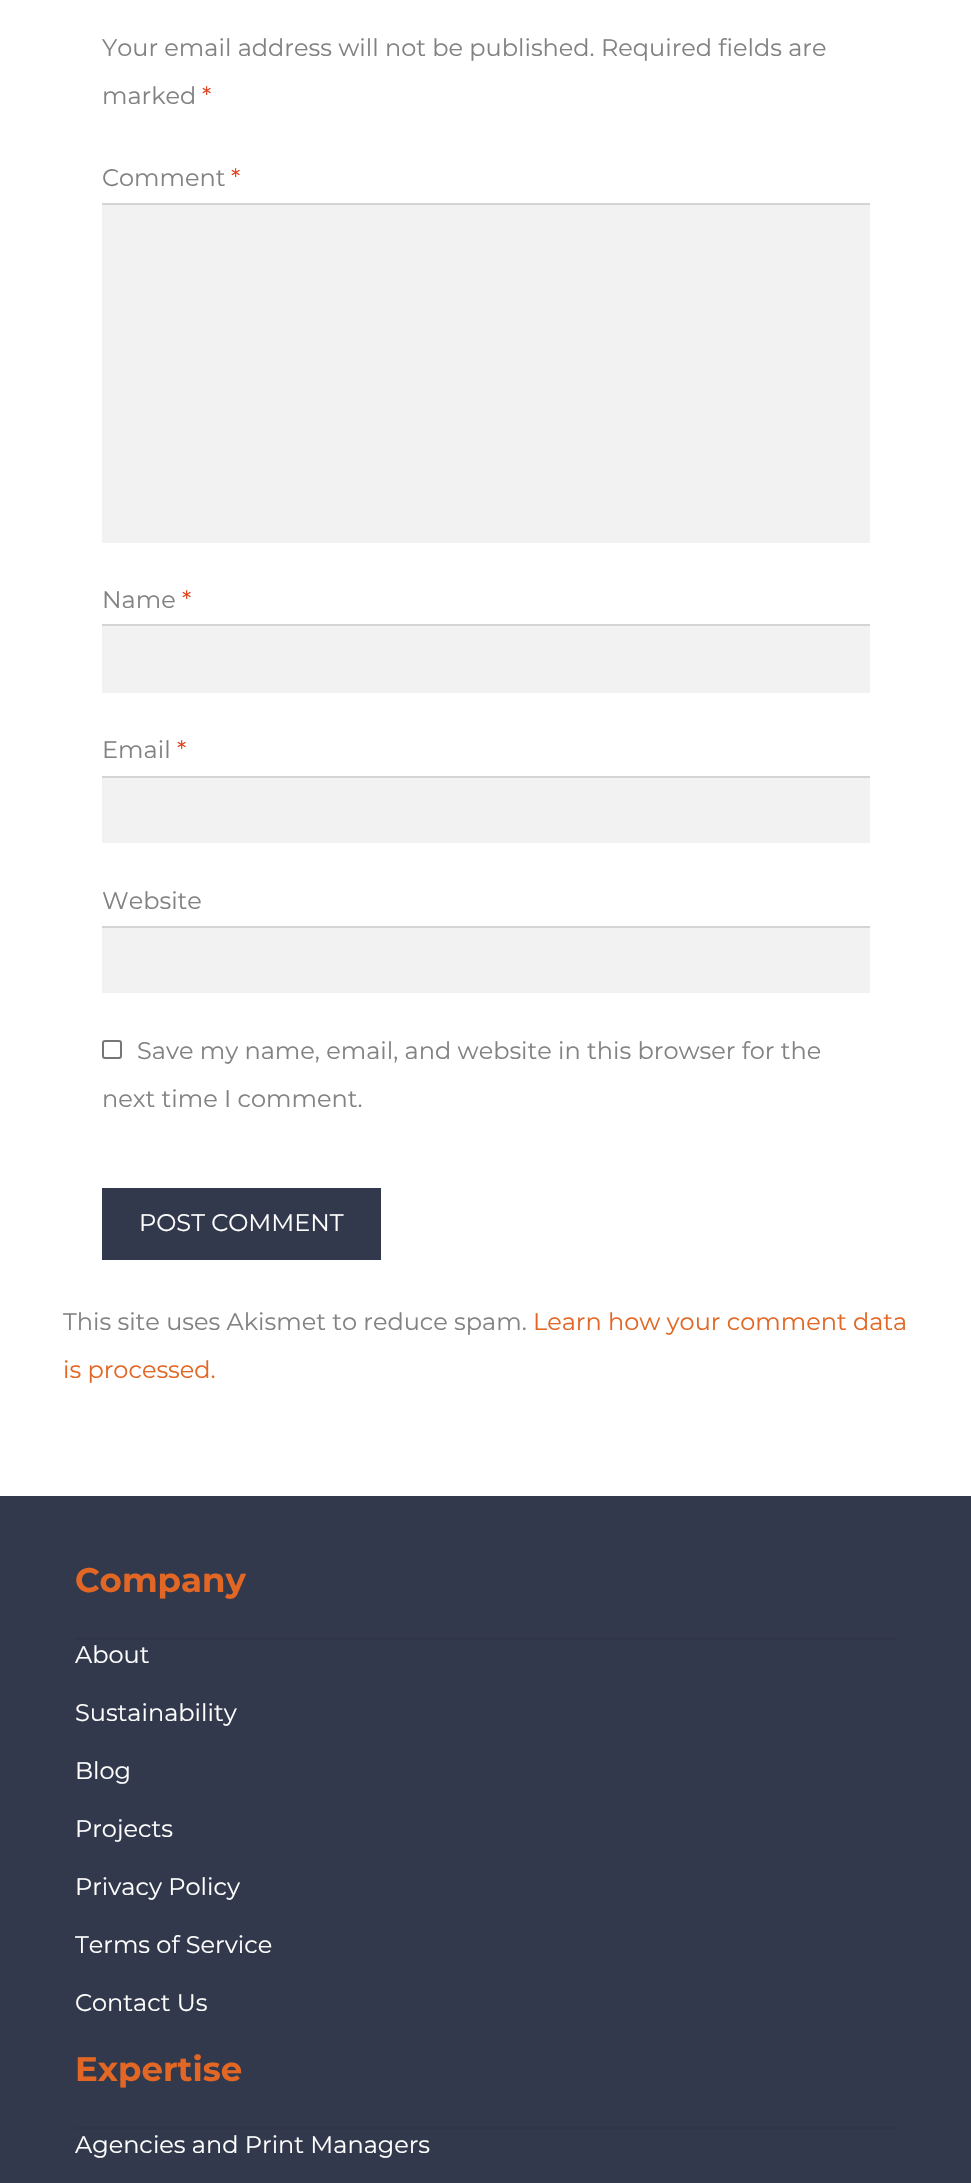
void draw(SkCanvas* canvas) {
    SkPaint paint;
    paint.setAntiAlias(true);
    auto face = [&](const char* family, int weight, float size, bool italic = false) {
        SkFontStyle style(weight, SkFontStyle::kNormal_Width,
            italic ? SkFontStyle::kItalic_Slant : SkFontStyle::kUpright_Slant);
        SkFont result(fontMgr->matchFamilyStyle(family, style), size);
        result.setSubpixel(true);
        return result;
    };
    auto write = [&](const char* s, float x, float y, const SkFont& font, SkColor color) {
        SkPaint ink(SkColor4f::FromColor(color));
        ink.setAntiAlias(true);
        canvas->drawString(s, x, y, font, ink);
    };
    auto block = [&](float x, float y, float w, float h, SkColor color) {
        SkPaint ink(SkColor4f::FromColor(color));
        ink.setAntiAlias(true);
        canvas->drawRect(SkRect::MakeXYWH(x, y, w, h), ink);
    };
    canvas->clear(SK_ColorWHITE);
    auto kFont1 = face("Montserrat", 400, 24);
    write("Your email address will not be published. Required fields are", 102, 56, kFont1, SkColorSetRGB(130, 130, 130));
    write("marked", 102, 104, kFont1, SkColorSetRGB(130, 130, 130));
    write("*", 202, 104, kFont1, SkColorSetRGB(226, 64, 28));
    write("Comment", 102, 186, kFont1, SkColorSetRGB(130, 130, 130));
    write("*", 231, 186, kFont1, SkColorSetRGB(226, 64, 28));
    block(102, 205, 768, 338, SkColorSetRGB(242, 242, 242));
    block(102, 203, 768, 2, SkColorSetRGB(212, 212, 212));
    write("Name", 102, 608, kFont1, SkColorSetRGB(130, 130, 130));
    write("*", 182, 608, kFont1, SkColorSetRGB(226, 64, 28));
    block(102, 626, 768, 67, SkColorSetRGB(242, 242, 242));
    block(102, 624, 768, 2, SkColorSetRGB(212, 212, 212));
    write("Email", 102, 758, kFont1, SkColorSetRGB(130, 130, 130));
    write("*", 177, 758, kFont1, SkColorSetRGB(226, 64, 28));
    block(102, 778, 768, 65, SkColorSetRGB(242, 242, 242));
    block(102, 776, 768, 2, SkColorSetRGB(212, 212, 212));
    write("Website", 102, 909, kFont1, SkColorSetRGB(130, 130, 130));
    block(102, 928, 768, 65, SkColorSetRGB(242, 242, 242));
    block(102, 926, 768, 2, SkColorSetRGB(212, 212, 212));
    paint.setStyle(SkPaint::kStroke_Style);
    paint.setStrokeWidth(2);
    paint.setColor(SkColorSetRGB(118, 118, 118));
    canvas->drawRoundRect(SkRect::MakeXYWH(103, 1041, 18, 17), 2, 2, paint);
    write("Save my name, email, and website in this browser for the", 137, 1059, kFont1, SkColorSetRGB(130, 130, 130));
    write("next time I comment.", 102, 1107, kFont1, SkColorSetRGB(130, 130, 130));
    block(102, 1188, 279, 72, SkColorSetRGB(51, 57, 76));
    write("POST COMMENT", 139, 1231, kFont1, SK_ColorWHITE);
    write("This site uses Akismet to reduce spam.", 63, 1330, kFont1, SkColorSetRGB(130, 130, 130));
    write("Learn how your comment data", 533, 1330, kFont1, SkColorSetRGB(226, 103, 36));
    write("is processed.", 63, 1378, kFont1, SkColorSetRGB(226, 103, 36));
    block(0, 1496, 971, 687, SkColorSetRGB(51, 57, 76));
    block(75, 1638, 822, 2, SkColorSetRGB(48, 54, 72));
    auto kFont2 = face("Montserrat", 700, 34);
    write("Company", 75, 1592, kFont2, SkColorSetRGB(226, 103, 36));
    write("About", 75, 1663, kFont1, SK_ColorWHITE);
    write("Sustainability", 75, 1721, kFont1, SK_ColorWHITE);
    write("Blog", 75, 1779, kFont1, SK_ColorWHITE);
    write("Projects", 75, 1837, kFont1, SK_ColorWHITE);
    write("Privacy Policy", 75, 1895, kFont1, SK_ColorWHITE);
    write("Terms of Service", 75, 1953, kFont1, SK_ColorWHITE);
    write("Contact Us", 75, 2011, kFont1, SK_ColorWHITE);
    block(75, 2127, 822, 2, SkColorSetRGB(48, 54, 72));
    write("Expertise", 75, 2081, kFont2, SkColorSetRGB(226, 103, 36));
    write("Agencies and Print Managers", 75, 2153, kFont1, SK_ColorWHITE);
}
